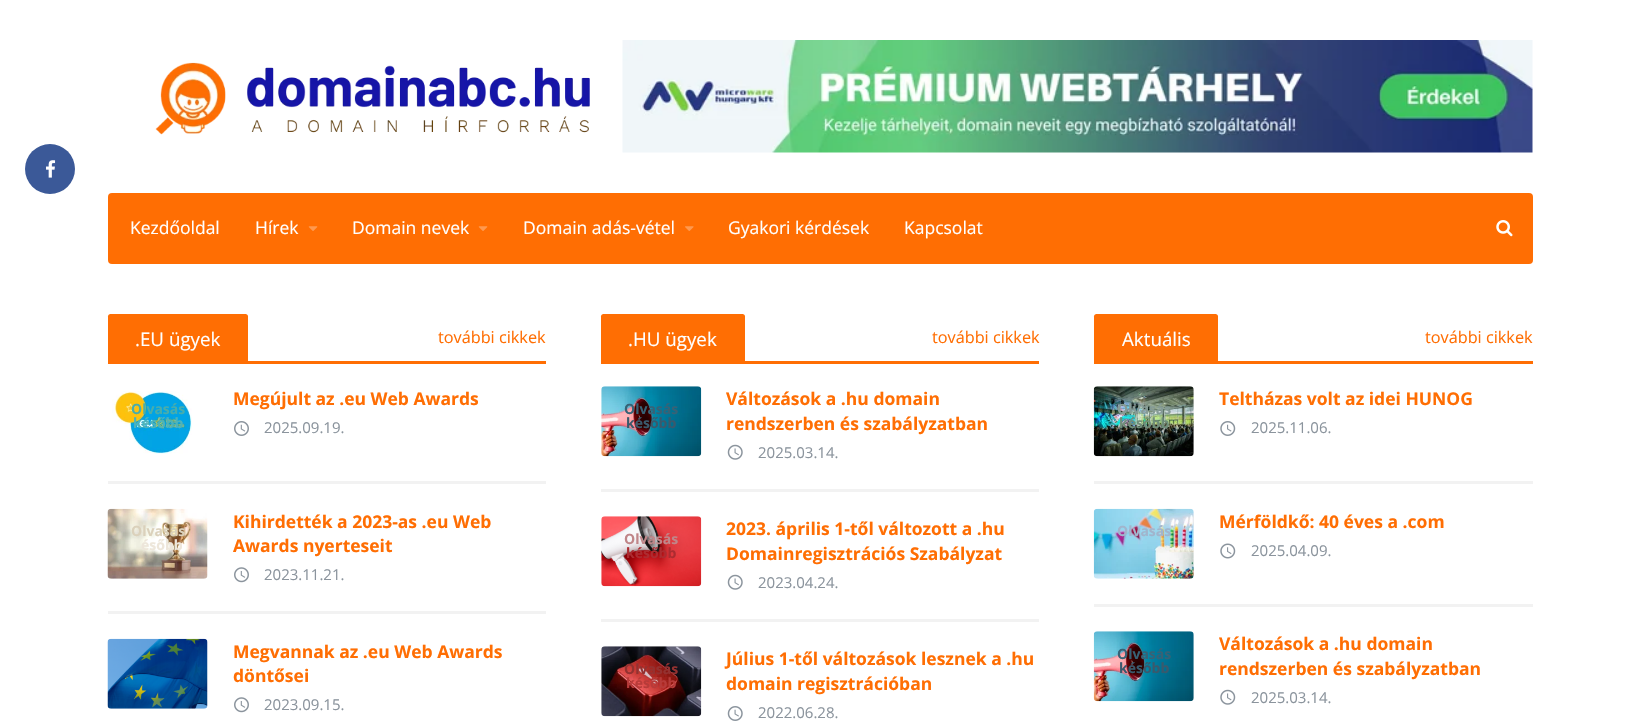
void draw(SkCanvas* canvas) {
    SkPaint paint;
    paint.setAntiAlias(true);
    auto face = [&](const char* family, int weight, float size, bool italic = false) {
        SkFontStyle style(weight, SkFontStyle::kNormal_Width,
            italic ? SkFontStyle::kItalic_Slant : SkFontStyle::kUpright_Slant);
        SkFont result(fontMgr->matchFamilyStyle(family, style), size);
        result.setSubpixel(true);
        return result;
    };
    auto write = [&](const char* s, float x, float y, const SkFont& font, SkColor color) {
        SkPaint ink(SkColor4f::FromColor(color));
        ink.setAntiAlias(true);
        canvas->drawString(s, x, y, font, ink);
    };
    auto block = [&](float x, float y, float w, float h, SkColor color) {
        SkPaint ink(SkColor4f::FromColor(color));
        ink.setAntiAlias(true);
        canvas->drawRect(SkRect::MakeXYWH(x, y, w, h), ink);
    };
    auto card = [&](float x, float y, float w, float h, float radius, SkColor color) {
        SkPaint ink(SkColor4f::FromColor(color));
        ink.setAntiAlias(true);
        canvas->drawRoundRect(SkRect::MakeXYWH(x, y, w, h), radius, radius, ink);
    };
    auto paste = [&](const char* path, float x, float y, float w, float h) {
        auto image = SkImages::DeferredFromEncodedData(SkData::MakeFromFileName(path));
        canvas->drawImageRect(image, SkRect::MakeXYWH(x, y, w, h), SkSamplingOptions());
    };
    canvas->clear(SK_ColorWHITE);
    paint.setColor(SkColorSetRGB(59, 89, 152));
    canvas->drawCircle(50, 169, 25, paint);
    paste("pic1.png", 46, 160, 10, 18);
    paste("pic2.png", 155, 62, 435, 73);
    paste("pic3.png", 622, 40, 911, 113);
    card(108, 193, 1425, 71, 4, SkColorSetRGB(255, 110, 3));
    auto kFont1 = face("Open Sans", 400, 17.5f);
    write("Kezdőoldal", 130, 234, kFont1, SK_ColorWHITE);
    write("Hírek", 255, 234, kFont1, SK_ColorWHITE);
    paste("pic4.png", 308, 226, 10, 5);
    write("Domain nevek", 352, 234, kFont1, SK_ColorWHITE);
    paste("pic4.png", 478, 226, 10, 5);
    write("Domain adás-vétel", 523, 234, kFont1, SK_ColorWHITE);
    paste("pic5.png", 685, 226, 9, 5);
    write("Gyakori kérdések", 728, 234, kFont1, SK_ColorWHITE);
    write("Kapcsolat", 904, 234, kFont1, SK_ColorWHITE);
    paste("pic6.png", 1496, 220, 17, 17);
    paint.setColor(SkColorSetRGB(255, 110, 3));
    canvas->drawPath(SkPathBuilder().moveTo(110.5f, 314).lineTo(245.5f, 314).cubicTo(247, 314, 248, 315, 248, 316.5f).lineTo(248, 361).lineTo(108, 361).lineTo(108, 316.5f).cubicTo(108, 315, 109, 314, 110.5f, 314).close().detach(), paint);
    auto kFont2 = face("Open Sans", 400, 18.75f);
    write(".EU ügyek", 135, 346, kFont2, SK_ColorWHITE);
    auto kFont3 = face("Open Sans", 400, 16.25f);
    write("további cikkek", 438, 343, kFont3, SkColorSetRGB(255, 110, 3));
    block(108, 361, 438, 3, SkColorSetRGB(255, 110, 3));
    block(108, 481, 438, 3, SkColorSetRGB(242, 242, 242));
    paste("pic7.png", 112, 391, 80, 63);
    auto kFont4 = face("Open Sans", 700, 14);
    write("Olvasás", 131, 414, kFont4, SkColorSetRGB(73, 173, 171));
    write("később", 133, 428, kFont4, SkColorSetRGB(78, 179, 185));
    auto kFont5 = face("Open Sans", 700, 17.5f);
    write("Megújult az .eu Web Awards", 233, 405, kFont5, SkColorSetRGB(255, 110, 3));
    paste("pic8.png", 234, 421, 15, 15);
    auto kFont6 = face("Open Sans", 400, 15);
    write("2025.09.19.", 264, 433, kFont6, SkColorSetRGB(139, 148, 157));
    block(108, 611, 438, 3, SkColorSetRGB(242, 242, 242));
    paste("pic9.png", 107, 508, 101, 71);
    write("Olvasás", 131, 536, kFont4, SkColorSetRGB(219, 209, 187));
    write("ésőbb", 141, 550, kFont4, SkColorSetRGB(237, 230, 218));
    write("Kihirdették a 2023-as .eu Web", 233, 528, kFont5, SkColorSetRGB(255, 110, 3));
    write("Awards nyerteseit", 233, 552, kFont5, SkColorSetRGB(255, 110, 3));
    paste("pic10.png", 234, 567, 15, 16);
    write("2023.11.21.", 264, 580, kFont6, SkColorSetRGB(139, 148, 157));
    paste("pic11.png", 107, 638, 101, 71);
    write("Megvannak az .eu Web Awards", 233, 658, kFont5, SkColorSetRGB(255, 110, 3));
    write("döntősei", 233, 682, kFont5, SkColorSetRGB(255, 110, 3));
    paste("pic10.png", 234, 697, 15, 16);
    write("2023.09.15.", 264, 710, kFont6, SkColorSetRGB(139, 148, 157));
    canvas->drawPath(SkPathBuilder().moveTo(603.5f, 314).lineTo(742.5f, 314).cubicTo(744, 314, 745, 315, 745, 316.5f).lineTo(745, 361).lineTo(601, 361).lineTo(601, 316.5f).cubicTo(601, 315, 602, 314, 603.5f, 314).close().detach(), paint);
    write(".HU ügyek", 628, 346, kFont2, SK_ColorWHITE);
    write("további cikkek", 932, 343, kFont3, SkColorSetRGB(255, 110, 3));
    block(601, 361, 438, 3, SkColorSetRGB(255, 110, 3));
    block(601, 489, 438, 3, SkColorSetRGB(242, 242, 242));
    paste("pic12.png", 601, 386, 101, 71);
    write("Olvasás", 624, 414, kFont4, SkColorSetRGB(55, 98, 118));
    write("később", 626, 428, kFont4, SkColorSetRGB(58, 89, 108));
    write("Változások a .hu domain", 726, 405, kFont5, SkColorSetRGB(255, 110, 3));
    write("rendszerben és szabályzatban", 726, 430, kFont5, SkColorSetRGB(255, 110, 3));
    paste("pic13.png", 727, 444, 16, 16);
    write("2025.03.14.", 758, 458, kFont6, SkColorSetRGB(139, 148, 157));
    block(601, 619, 438, 3, SkColorSetRGB(242, 242, 242));
    paste("pic14.png", 601, 516, 101, 71);
    write("Olvasás", 624, 544, kFont4, SkColorSetRGB(192, 134, 137));
    write("később", 626, 558, kFont4, SkColorSetRGB(173, 43, 48));
    write("2023. április 1-től változott a .hu", 726, 535, kFont5, SkColorSetRGB(255, 110, 3));
    write("Domainregisztrációs Szabályzat", 726, 560, kFont5, SkColorSetRGB(255, 110, 3));
    paste("pic13.png", 727, 574, 16, 16);
    write("2023.04.24.", 758, 588, kFont6, SkColorSetRGB(139, 148, 157));
    paste("pic15.png", 601, 646, 101, 71);
    write("Olvasás", 624, 674, kFont4, SkColorSetRGB(148, 49, 48));
    write("később", 626, 688, kFont4, SkColorSetRGB(184, 59, 57));
    write("Július 1-től változások lesznek a .hu", 726, 665, kFont5, SkColorSetRGB(255, 110, 3));
    write("domain regisztrációban", 726, 690, kFont5, SkColorSetRGB(255, 110, 3));
    paste("pic16.png", 727, 706, 16, 15);
    write("2022.06.28.", 758, 718, kFont6, SkColorSetRGB(139, 148, 157));
    canvas->drawPath(SkPathBuilder().moveTo(1096.5f, 314).lineTo(1215.5f, 314).cubicTo(1217, 314, 1218, 315, 1218, 316.5f).lineTo(1218, 361).lineTo(1094, 361).lineTo(1094, 316.5f).cubicTo(1094, 315, 1095, 314, 1096.5f, 314).close().detach(), paint);
    write("Aktuális", 1122, 346, kFont2, SK_ColorWHITE);
    write("további cikkek", 1425, 343, kFont3, SkColorSetRGB(255, 110, 3));
    block(1094, 361, 439, 3, SkColorSetRGB(255, 110, 3));
    block(1094, 481, 439, 3, SkColorSetRGB(242, 242, 242));
    paste("pic17.png", 1093, 386, 101, 71);
    write("Olvasás", 1117, 414, kFont4, SkColorSetRGB(133, 155, 150));
    write("később", 1119, 428, kFont4, SkColorSetRGB(111, 142, 121));
    write("Teltházas volt az idei HUNOG", 1219, 405, kFont5, SkColorSetRGB(255, 110, 3));
    paste("pic18.png", 1220, 421, 16, 15);
    write("2025.11.06.", 1251, 433, kFont6, SkColorSetRGB(139, 148, 157));
    block(1094, 604, 439, 3, SkColorSetRGB(242, 242, 242));
    paste("pic19.png", 1093, 508, 101, 71);
    write("Olvasás", 1117, 536, kFont4, SkColorSetRGB(161, 181, 205));
    write("Mérföldkő: 40 éves a .com", 1219, 528, kFont5, SkColorSetRGB(255, 110, 3));
    paste("pic20.png", 1220, 543, 16, 16);
    write("2025.04.09.", 1251, 556, kFont6, SkColorSetRGB(139, 148, 157));
    paste("pic21.png", 1093, 631, 101, 71);
    write("Olvasás", 1117, 659, kFont4, SkColorSetRGB(55, 98, 118));
    write("később", 1119, 673, kFont4, SkColorSetRGB(58, 89, 108));
    write("Változások a .hu domain", 1219, 650, kFont5, SkColorSetRGB(255, 110, 3));
    write("rendszerben és szabályzatban", 1219, 675, kFont5, SkColorSetRGB(255, 110, 3));
    paste("pic22.png", 1220, 689, 16, 16);
    write("2025.03.14.", 1251, 703, kFont6, SkColorSetRGB(139, 148, 157));
}
